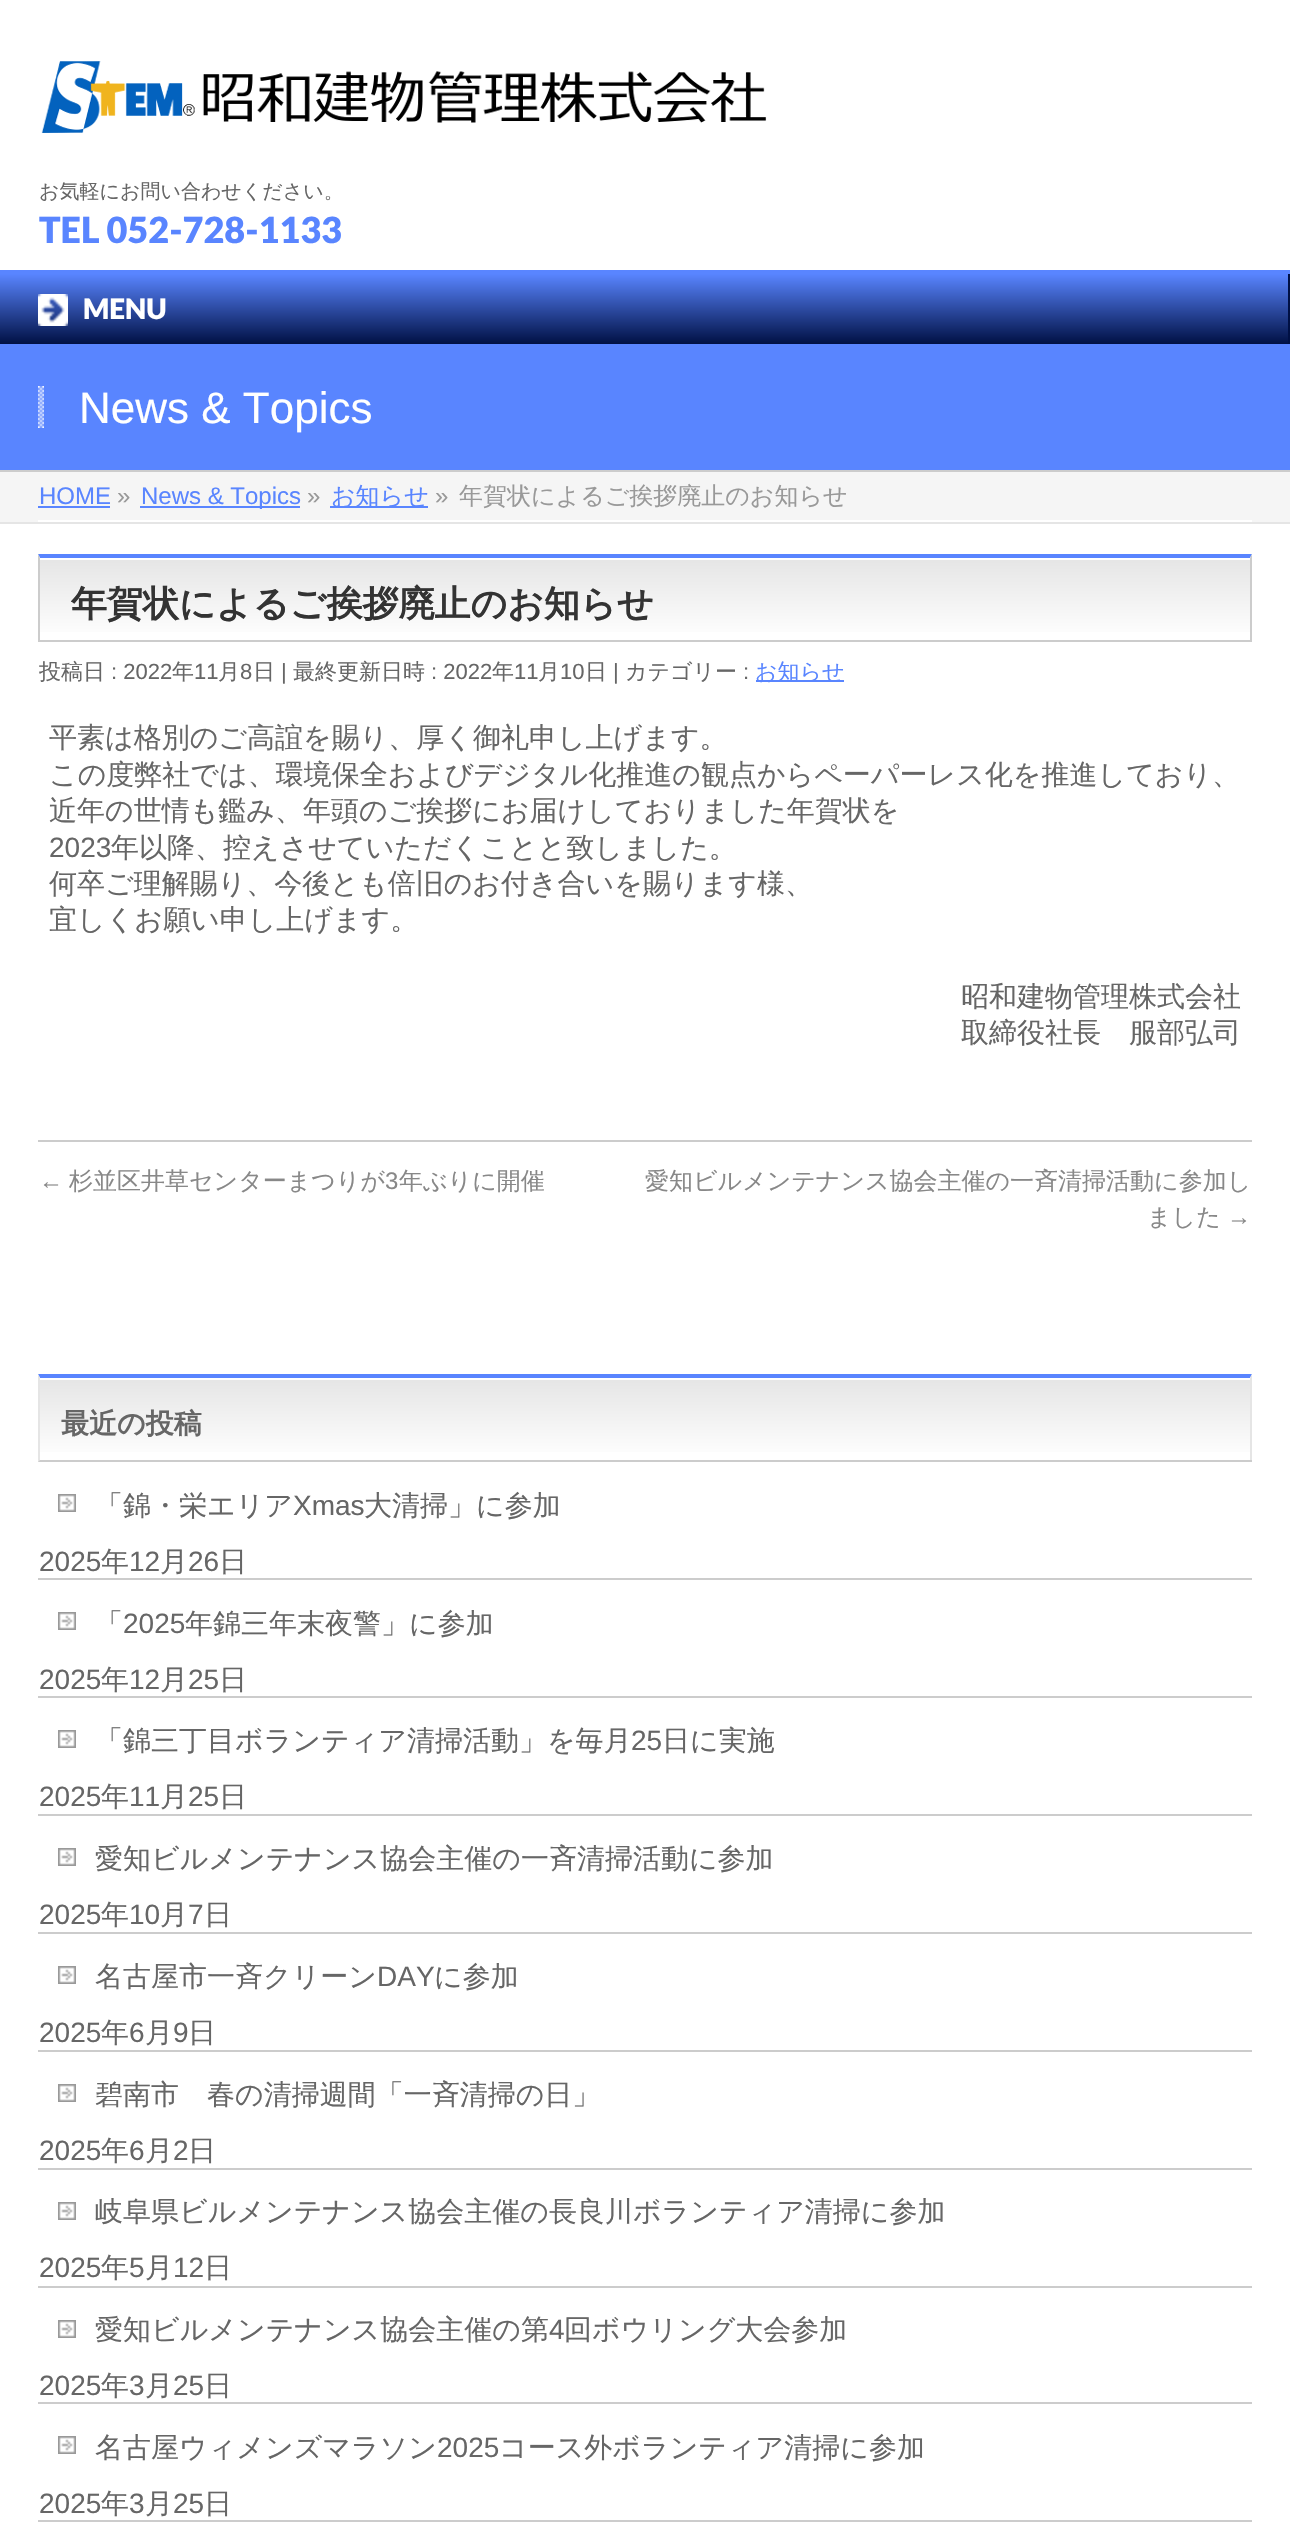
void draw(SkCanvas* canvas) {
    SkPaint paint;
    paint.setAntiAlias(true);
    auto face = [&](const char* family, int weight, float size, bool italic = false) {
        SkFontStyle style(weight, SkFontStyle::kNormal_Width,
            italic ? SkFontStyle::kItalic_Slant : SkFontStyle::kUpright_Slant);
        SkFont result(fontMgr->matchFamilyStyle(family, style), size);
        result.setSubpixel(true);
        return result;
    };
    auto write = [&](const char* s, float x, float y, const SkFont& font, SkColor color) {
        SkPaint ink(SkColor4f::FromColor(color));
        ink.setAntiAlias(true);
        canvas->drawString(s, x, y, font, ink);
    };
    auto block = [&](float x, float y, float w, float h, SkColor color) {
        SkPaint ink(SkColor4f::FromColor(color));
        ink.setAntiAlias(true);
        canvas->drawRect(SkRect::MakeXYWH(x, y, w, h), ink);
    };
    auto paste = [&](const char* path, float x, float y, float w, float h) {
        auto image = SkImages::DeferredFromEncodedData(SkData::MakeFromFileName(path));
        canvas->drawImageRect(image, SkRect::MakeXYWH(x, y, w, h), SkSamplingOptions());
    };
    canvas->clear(SK_ColorWHITE);
    paste("pic1.png", 41, 61, 726, 72);
    auto kFont1 = face("WenQuanYi Zen Hei", 500, 20);
    write("お気軽にお問い合わせください。", 39, 198, kFont1, SkColorSetRGB(102, 102, 102));
    auto kFont2 = face("Lato", 900, 36);
    write("TEL 052-728-1133", 39, 243, kFont2, SkColorSetRGB(89, 133, 255));
    block(0, 270, 1290, 4, SkColorSetRGB(89, 133, 255));
    {
        const SkColor colors[] = {SkColorSetRGB(89, 133, 255), SkColorSetRGB(0, 16, 68)};
        const float stops[] = {0, 1};
        const SkPoint ends[] = {{644, 274}, {644, 344}};
        paint.setShader(SkGradientShader::MakeLinear(ends, colors, stops, 2, SkTileMode::kClamp));
        paint.setAlpha(255);
    }
    canvas->drawRect(SkRect::MakeXYWH(0, 274, 1288, 70), paint);
    block(1288, 274, 2, 70, SkColorSetRGB(0, 16, 68));
    paste("pic2.png", 38, 294, 30, 32);
    auto kFont3 = face("Lato", 900, 28);
    write("MENU", 83, 319, kFont3, SK_ColorWHITE);
    block(0, 344, 1290, 126, SkColorSetRGB(89, 133, 255));
    block(0, 470, 1290, 2, SkColorSetRGB(204, 204, 204));
    paste("pic3.png", 38, 386, 6, 42);
    auto kFont4 = face("Liberation Sans", 400, 44);
    write("News & Topics", 79, 423, kFont4, SK_ColorWHITE);
    block(0, 472, 1290, 50, SkColorSetRGB(245, 245, 245));
    block(0, 522, 1290, 2, SkColorSetRGB(229, 229, 229));
    block(38, 520, 1214, 2, SK_ColorWHITE);
    auto kFont5 = face("Liberation Sans", 400, 24);
    write("HOME", 39, 504, kFont5, SkColorSetRGB(89, 133, 255));
    block(38, 506, 72, 2, SkColorSetRGB(89, 133, 255));
    write("»", 117, 504, kFont5, SkColorSetRGB(153, 153, 153));
    block(140, 506, 160, 2, SkColorSetRGB(89, 133, 255));
    write("News & Topics", 141, 504, kFont5, SkColorSetRGB(89, 133, 255));
    write("»", 307, 504, kFont5, SkColorSetRGB(153, 153, 153));
    block(330, 506, 98, 2, SkColorSetRGB(89, 133, 255));
    auto kFont6 = face("WenQuanYi Zen Hei", 500, 24);
    write("お知らせ", 331, 504, kFont6, SkColorSetRGB(89, 133, 255));
    write("»", 435, 504, kFont5, SkColorSetRGB(153, 153, 153));
    write("年賀状によるご挨拶廃止のお知らせ", 459, 504, kFont6, SkColorSetRGB(153, 153, 153));
    {
        const SkColor colors[] = {SkColorSetRGB(229, 229, 229), SK_ColorWHITE};
        const float stops[] = {0, 1};
        const SkPoint ends[] = {{40, 558}, {40, 640}};
        paint.setShader(SkGradientShader::MakeLinear(ends, colors, stops, 2, SkTileMode::kClamp));
        paint.setAlpha(255);
    }
    canvas->drawRect(SkRect::MakeXYWH(40, 560, 1210, 72), paint);
    paint.setShader(nullptr);
    paint.setColor(SkColorSetRGB(89, 133, 255));
    canvas->drawPath(SkPathBuilder().moveTo(38, 554).lineTo(1252, 554).lineTo(1250, 558).lineTo(40, 558).close().detach(), paint);
    paint.setColor(SkColorSetRGB(204, 204, 204));
    canvas->drawPath(SkPathBuilder().moveTo(1252, 554).lineTo(1252, 642).lineTo(1250, 640).lineTo(1250, 558).close().detach(), paint);
    block(38, 640, 1214, 2, SkColorSetRGB(204, 204, 204));
    canvas->drawPath(SkPathBuilder().moveTo(38, 642).lineTo(38, 554).lineTo(40, 558).lineTo(40, 640).close().detach(), paint);
    auto kFont7 = face("WenQuanYi Zen Hei", 700, 36);
    write("年賀状によるご挨拶廃止のお知らせ", 71, 616, kFont7, SkColorSetRGB(51, 51, 51));
    auto kFont8 = face("WenQuanYi Zen Hei", 500, 22);
    write("投稿日", 39, 679, kFont8, SkColorSetRGB(102, 102, 102));
    auto kFont9 = face("Liberation Sans", 400, 22);
    write(": 2022", 111, 679, kFont9, SkColorSetRGB(102, 102, 102));
    write("年", 172, 679, kFont8, SkColorSetRGB(102, 102, 102));
    write("11", 194, 679, kFont9, SkColorSetRGB(102, 102, 102));
    write("月", 218, 679, kFont8, SkColorSetRGB(102, 102, 102));
    write("8", 240, 679, kFont9, SkColorSetRGB(102, 102, 102));
    write("日", 253, 679, kFont8, SkColorSetRGB(102, 102, 102));
    write("|", 281, 679, kFont9, SkColorSetRGB(102, 102, 102));
    write("最終更新日時", 293, 679, kFont8, SkColorSetRGB(102, 102, 102));
    write(": 2022", 431, 679, kFont9, SkColorSetRGB(102, 102, 102));
    write("年", 492, 679, kFont8, SkColorSetRGB(102, 102, 102));
    write("11", 514, 679, kFont9, SkColorSetRGB(102, 102, 102));
    write("月", 538, 679, kFont8, SkColorSetRGB(102, 102, 102));
    write("10", 560, 679, kFont9, SkColorSetRGB(102, 102, 102));
    write("日", 585, 679, kFont8, SkColorSetRGB(102, 102, 102));
    write("|", 613, 679, kFont9, SkColorSetRGB(102, 102, 102));
    write("カテゴリー", 625, 679, kFont8, SkColorSetRGB(102, 102, 102));
    write(":", 743, 679, kFont9, SkColorSetRGB(102, 102, 102));
    block(756, 680, 88, 2, SkColorSetRGB(89, 133, 255));
    write("お知らせ", 755, 679, kFont8, SkColorSetRGB(89, 133, 255));
    auto kFont10 = face("WenQuanYi Zen Hei", 500, 28);
    write("平素は格別のご高誼を賜り、厚く御礼申し上げます。", 49, 747, kFont10, SkColorSetRGB(102, 102, 102));
    write("この度弊社では、環境保全およびデジタル化推進の観点からペーパーレス化を推進しており、", 49, 784, kFont10, SkColorSetRGB(102, 102, 102));
    write("近年の世情も鑑み、年頭のご挨拶にお届けしておりました年賀状を", 49, 820, kFont10, SkColorSetRGB(102, 102, 102));
    auto kFont11 = face("Liberation Sans", 400, 28);
    write("2023", 49, 857, kFont11, SkColorSetRGB(102, 102, 102));
    write("年以降、控えさせていただくことと致しました。", 111, 857, kFont10, SkColorSetRGB(102, 102, 102));
    write("何卒ご理解賜り、今後とも倍旧のお付き合いを賜ります様、", 49, 893, kFont10, SkColorSetRGB(102, 102, 102));
    write("宜しくお願い申し上げます。", 49, 929, kFont10, SkColorSetRGB(102, 102, 102));
    write("昭和建物管理株式会社", 961, 1006, kFont10, SkColorSetRGB(102, 102, 102));
    write("取締役社長　服部弘司", 961, 1042, kFont10, SkColorSetRGB(102, 102, 102));
    block(38, 1140, 1214, 2, SkColorSetRGB(204, 204, 204));
    write("←", 39, 1189, kFont5, SkColorSetRGB(136, 136, 136));
    write("杉並区井草センターまつりが", 69, 1189, kFont6, SkColorSetRGB(136, 136, 136));
    write("3", 385, 1189, kFont5, SkColorSetRGB(136, 136, 136));
    write("年ぶりに開催", 399, 1189, kFont6, SkColorSetRGB(136, 136, 136));
    write("愛知ビルメンテナンス協会主催の一斉清掃活動に参加し", 645, 1189, kFont6, SkColorSetRGB(136, 136, 136));
    write("ました", 1147, 1225, kFont6, SkColorSetRGB(136, 136, 136));
    write("→", 1227, 1225, kFont5, SkColorSetRGB(136, 136, 136));
    {
        const SkColor colors[] = {SkColorSetRGB(229, 229, 229), SK_ColorWHITE};
        const float stops[] = {0, 1};
        const SkPoint ends[] = {{40, 1378}, {40, 1460}};
        paint.setShader(SkGradientShader::MakeLinear(ends, colors, stops, 2, SkTileMode::kClamp));
        paint.setAlpha(255);
    }
    canvas->drawRect(SkRect::MakeXYWH(40, 1380, 1210, 72), paint);
    paint.setShader(nullptr);
    paint.setColor(SkColorSetRGB(89, 133, 255));
    canvas->drawPath(SkPathBuilder().moveTo(38, 1374).lineTo(1252, 1374).lineTo(1250, 1378).lineTo(40, 1378).close().detach(), paint);
    paint.setColor(SkColorSetRGB(229, 229, 229));
    canvas->drawPath(SkPathBuilder().moveTo(1252, 1374).lineTo(1252, 1462).lineTo(1250, 1460).lineTo(1250, 1378).close().detach(), paint);
    block(38, 1460, 1214, 2, SkColorSetRGB(204, 204, 204));
    canvas->drawPath(SkPathBuilder().moveTo(38, 1462).lineTo(38, 1374).lineTo(40, 1378).lineTo(40, 1460).close().detach(), paint);
    auto kFont12 = face("WenQuanYi Zen Hei", 700, 28);
    write("最近の投稿", 61, 1433, kFont12, SkColorSetRGB(102, 102, 102));
    block(38, 1578, 1214, 2, SkColorSetRGB(204, 204, 204));
    paste("pic4.png", 58, 1494, 18, 18);
    write("「錦・栄エリア", 95, 1515, kFont10, SkColorSetRGB(102, 102, 102));
    write("Xmas", 293, 1515, kFont11, SkColorSetRGB(102, 102, 102));
    write("大清掃」に参加", 364, 1515, kFont10, SkColorSetRGB(102, 102, 102));
    write("2025", 39, 1571, kFont11, SkColorSetRGB(102, 102, 102));
    write("年", 101, 1571, kFont10, SkColorSetRGB(102, 102, 102));
    write("12", 129, 1571, kFont11, SkColorSetRGB(102, 102, 102));
    write("月", 160, 1571, kFont10, SkColorSetRGB(102, 102, 102));
    write("26", 188, 1571, kFont11, SkColorSetRGB(102, 102, 102));
    write("日", 219, 1571, kFont10, SkColorSetRGB(102, 102, 102));
    block(38, 1696, 1214, 2, SkColorSetRGB(204, 204, 204));
    paste("pic4.png", 58, 1612, 18, 18);
    write("「", 95, 1633, kFont10, SkColorSetRGB(102, 102, 102));
    write("2025", 123, 1633, kFont11, SkColorSetRGB(102, 102, 102));
    write("年錦三年末夜警」に参加", 185, 1633, kFont10, SkColorSetRGB(102, 102, 102));
    write("2025", 39, 1689, kFont11, SkColorSetRGB(102, 102, 102));
    write("年", 101, 1689, kFont10, SkColorSetRGB(102, 102, 102));
    write("12", 129, 1689, kFont11, SkColorSetRGB(102, 102, 102));
    write("月", 160, 1689, kFont10, SkColorSetRGB(102, 102, 102));
    write("25", 188, 1689, kFont11, SkColorSetRGB(102, 102, 102));
    write("日", 219, 1689, kFont10, SkColorSetRGB(102, 102, 102));
    block(38, 1814, 1214, 2, SkColorSetRGB(204, 204, 204));
    paste("pic4.png", 58, 1730, 18, 18);
    write("「錦三丁目ボランティア清掃活動」を毎月", 95, 1750, kFont10, SkColorSetRGB(102, 102, 102));
    write("25", 631, 1750, kFont11, SkColorSetRGB(102, 102, 102));
    write("日に実施", 662, 1750, kFont10, SkColorSetRGB(102, 102, 102));
    write("2025", 39, 1806, kFont11, SkColorSetRGB(102, 102, 102));
    write("年", 101, 1806, kFont10, SkColorSetRGB(102, 102, 102));
    write("11", 129, 1806, kFont11, SkColorSetRGB(102, 102, 102));
    write("月", 160, 1806, kFont10, SkColorSetRGB(102, 102, 102));
    write("25", 188, 1806, kFont11, SkColorSetRGB(102, 102, 102));
    write("日", 219, 1806, kFont10, SkColorSetRGB(102, 102, 102));
    block(38, 1932, 1214, 2, SkColorSetRGB(204, 204, 204));
    paste("pic4.png", 58, 1848, 18, 18);
    write("愛知ビルメンテナンス協会主催の一斉清掃活動に参加", 95, 1868, kFont10, SkColorSetRGB(102, 102, 102));
    write("2025", 39, 1924, kFont11, SkColorSetRGB(102, 102, 102));
    write("年", 101, 1924, kFont10, SkColorSetRGB(102, 102, 102));
    write("10", 129, 1924, kFont11, SkColorSetRGB(102, 102, 102));
    write("月", 160, 1924, kFont10, SkColorSetRGB(102, 102, 102));
    write("7", 188, 1924, kFont11, SkColorSetRGB(102, 102, 102));
    write("日", 204, 1924, kFont10, SkColorSetRGB(102, 102, 102));
    block(38, 2050, 1214, 2, SkColorSetRGB(204, 204, 204));
    paste("pic4.png", 58, 1966, 18, 18);
    write("名古屋市一斉クリーン", 95, 1986, kFont10, SkColorSetRGB(102, 102, 102));
    write("DAY", 377, 1986, kFont11, SkColorSetRGB(102, 102, 102));
    write("に参加", 434, 1986, kFont10, SkColorSetRGB(102, 102, 102));
    write("2025", 39, 2042, kFont11, SkColorSetRGB(102, 102, 102));
    write("年", 101, 2042, kFont10, SkColorSetRGB(102, 102, 102));
    write("6", 129, 2042, kFont11, SkColorSetRGB(102, 102, 102));
    write("月", 145, 2042, kFont10, SkColorSetRGB(102, 102, 102));
    write("9", 173, 2042, kFont11, SkColorSetRGB(102, 102, 102));
    write("日", 188, 2042, kFont10, SkColorSetRGB(102, 102, 102));
    block(38, 2168, 1214, 2, SkColorSetRGB(204, 204, 204));
    paste("pic4.png", 58, 2084, 18, 18);
    write("碧南市　春の清掃週間「一斉清掃の日」", 95, 2104, kFont10, SkColorSetRGB(102, 102, 102));
    write("2025", 39, 2160, kFont11, SkColorSetRGB(102, 102, 102));
    write("年", 101, 2160, kFont10, SkColorSetRGB(102, 102, 102));
    write("6", 129, 2160, kFont11, SkColorSetRGB(102, 102, 102));
    write("月", 145, 2160, kFont10, SkColorSetRGB(102, 102, 102));
    write("2", 173, 2160, kFont11, SkColorSetRGB(102, 102, 102));
    write("日", 188, 2160, kFont10, SkColorSetRGB(102, 102, 102));
    block(38, 2286, 1214, 2, SkColorSetRGB(204, 204, 204));
    paste("pic4.png", 58, 2202, 18, 18);
    write("岐阜県ビルメンテナンス協会主催の長良川ボランティア清掃に参加", 95, 2221, kFont10, SkColorSetRGB(102, 102, 102));
    write("2025", 39, 2277, kFont11, SkColorSetRGB(102, 102, 102));
    write("年", 101, 2277, kFont10, SkColorSetRGB(102, 102, 102));
    write("5", 129, 2277, kFont11, SkColorSetRGB(102, 102, 102));
    write("月", 145, 2277, kFont10, SkColorSetRGB(102, 102, 102));
    write("12", 173, 2277, kFont11, SkColorSetRGB(102, 102, 102));
    write("日", 204, 2277, kFont10, SkColorSetRGB(102, 102, 102));
    block(38, 2402, 1214, 2, SkColorSetRGB(204, 204, 204));
    paste("pic4.png", 58, 2320, 18, 18);
    write("愛知ビルメンテナンス協会主催の第", 95, 2339, kFont10, SkColorSetRGB(102, 102, 102));
    write("4", 549, 2339, kFont11, SkColorSetRGB(102, 102, 102));
    write("回ボウリング大会参加", 564, 2339, kFont10, SkColorSetRGB(102, 102, 102));
    write("2025", 39, 2395, kFont11, SkColorSetRGB(102, 102, 102));
    write("年", 101, 2395, kFont10, SkColorSetRGB(102, 102, 102));
    write("3", 129, 2395, kFont11, SkColorSetRGB(102, 102, 102));
    write("月", 145, 2395, kFont10, SkColorSetRGB(102, 102, 102));
    write("25", 173, 2395, kFont11, SkColorSetRGB(102, 102, 102));
    write("日", 204, 2395, kFont10, SkColorSetRGB(102, 102, 102));
    block(38, 2520, 1214, 2, SkColorSetRGB(204, 204, 204));
    paste("pic4.png", 58, 2436, 18, 18);
    write("名古屋ウィメンズマラソン", 95, 2457, kFont10, SkColorSetRGB(102, 102, 102));
    write("2025", 437, 2457, kFont11, SkColorSetRGB(102, 102, 102));
    write("コース外ボランティア清掃に参加", 499, 2457, kFont10, SkColorSetRGB(102, 102, 102));
    write("2025", 39, 2513, kFont11, SkColorSetRGB(102, 102, 102));
    write("年", 101, 2513, kFont10, SkColorSetRGB(102, 102, 102));
    write("3", 129, 2513, kFont11, SkColorSetRGB(102, 102, 102));
    write("月", 145, 2513, kFont10, SkColorSetRGB(102, 102, 102));
    write("25", 173, 2513, kFont11, SkColorSetRGB(102, 102, 102));
    write("日", 204, 2513, kFont10, SkColorSetRGB(102, 102, 102));
}
